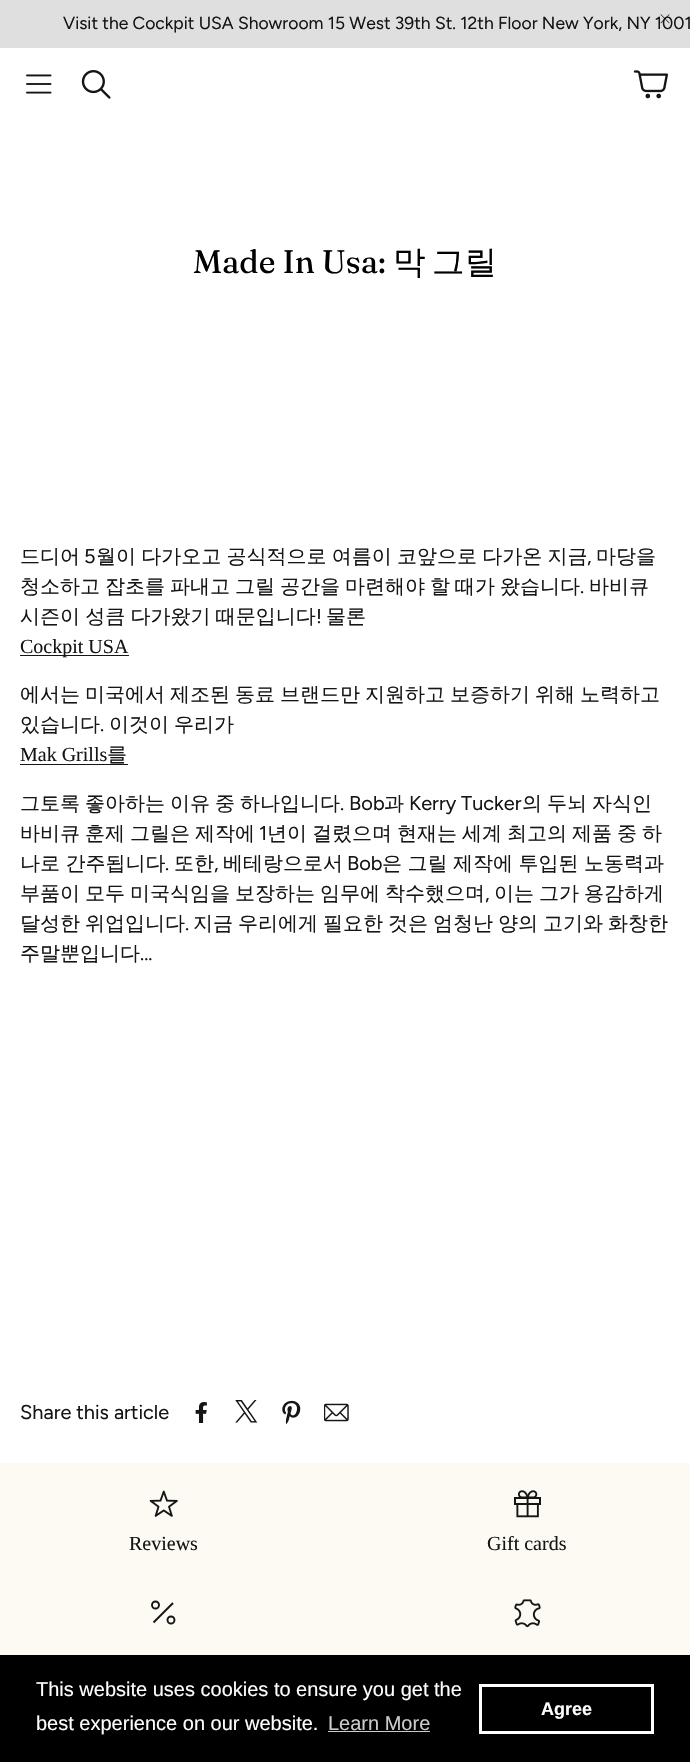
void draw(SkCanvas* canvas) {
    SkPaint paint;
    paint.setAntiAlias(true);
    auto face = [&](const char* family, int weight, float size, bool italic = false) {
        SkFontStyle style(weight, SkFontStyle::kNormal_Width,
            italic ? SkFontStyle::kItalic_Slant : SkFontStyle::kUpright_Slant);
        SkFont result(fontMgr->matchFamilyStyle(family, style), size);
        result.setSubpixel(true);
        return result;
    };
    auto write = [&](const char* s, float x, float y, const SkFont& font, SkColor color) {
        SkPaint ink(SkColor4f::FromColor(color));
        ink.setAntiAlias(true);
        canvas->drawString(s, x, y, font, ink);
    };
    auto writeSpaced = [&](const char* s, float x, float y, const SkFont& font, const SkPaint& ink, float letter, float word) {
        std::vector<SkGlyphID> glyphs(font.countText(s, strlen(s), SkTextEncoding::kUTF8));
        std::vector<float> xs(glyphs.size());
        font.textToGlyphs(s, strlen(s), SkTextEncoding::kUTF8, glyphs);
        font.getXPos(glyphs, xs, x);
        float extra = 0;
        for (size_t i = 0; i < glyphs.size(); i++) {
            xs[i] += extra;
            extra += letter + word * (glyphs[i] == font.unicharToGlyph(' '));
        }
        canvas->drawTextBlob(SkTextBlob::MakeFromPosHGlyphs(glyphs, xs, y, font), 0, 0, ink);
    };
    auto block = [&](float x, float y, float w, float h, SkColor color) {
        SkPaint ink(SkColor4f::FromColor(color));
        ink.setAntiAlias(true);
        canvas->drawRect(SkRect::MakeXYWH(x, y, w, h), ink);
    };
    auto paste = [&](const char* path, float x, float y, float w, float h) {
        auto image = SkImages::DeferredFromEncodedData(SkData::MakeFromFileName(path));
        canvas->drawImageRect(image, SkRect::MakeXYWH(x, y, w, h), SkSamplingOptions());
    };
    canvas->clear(SK_ColorWHITE);
    block(0, 0, 690, 48, SkColorSetRGB(223, 223, 223));
    auto kFont1 = face("Figtree", 400, 17.5f);
    write("Visit the Cockpit USA Showroom 15 West 39th St. 12th Floor New York, NY 1001", 63, 29, kFont1, SkColorSetRGB(21, 21, 21));
    paste("pic1.png", 660, 14, 10, 10);
    paste("pic2.png", 26, 74, 26, 20);
    paste("pic3.png", 81, 70, 30, 29);
    paste("pic4.png", 633, 70, 35, 29);
    auto kFont2 = face("Fraunces", 400, 32.5f);
    write("Made In Usa:", 193, 273, kFont2, SK_ColorBLACK);
    auto kFont3 = face("WenQuanYi Zen Hei", 500, 32.5f);
    write("막", 393, 273, kFont3, SK_ColorBLACK);
    write("그릴", 432, 273, kFont3, SK_ColorBLACK);
    auto kFont4 = face("WenQuanYi Zen Hei", 500, 20);
    write("드디어", 20, 563, kFont4, SkColorSetRGB(21, 21, 21));
    auto kFont5 = face("Figtree", 400, 20);
    write("5", 84, 563, kFont5, SkColorSetRGB(21, 21, 21));
    paint.setColor(SkColorSetRGB(21, 21, 21));
    writeSpaced("월이 다가오고 공식적으로 여름이 코앞으로 다가온 지금", 96, 563, kFont4, paint, 0, -0.75f);
    write(",", 587, 563, kFont5, SkColorSetRGB(21, 21, 21));
    write("마당을", 596, 563, kFont4, SkColorSetRGB(21, 21, 21));
    writeSpaced("청소하고 잡초를 파내고 그릴 공간을 마련해야 할 때가 왔습니다", 20, 593, kFont4, paint, 0, -1);
    write(".", 580, 593, kFont5, SkColorSetRGB(21, 21, 21));
    write("바비큐", 589, 593, kFont4, SkColorSetRGB(21, 21, 21));
    writeSpaced("시즌이 성큼 다가왔기 때문입니다", 20, 623, kFont4, paint, 0, -0.75f);
    write("!", 316, 623, kFont5, SkColorSetRGB(21, 21, 21));
    write("물론", 326, 623, kFont4, SkColorSetRGB(21, 21, 21));
    block(20, 655, 109, 1, SkColorSetRGB(21, 21, 21));
    auto kFont6 = face("Liberation Serif", 400, 20);
    write("Cockpit USA", 20, 653, kFont6, SkColorSetRGB(21, 21, 21));
    writeSpaced("에서는 미국에서 제조된 동료 브랜드만 지원하고 보증하기 위해 노력하고", 20, 701, kFont4, paint, 0, -1);
    write("있습니다", 20, 731, kFont4, SkColorSetRGB(21, 21, 21));
    write(".", 100, 731, kFont5, SkColorSetRGB(21, 21, 21));
    writeSpaced("이것이 우리가", 109, 731, kFont4, paint, 0, -1);
    write("Mak Grills", 20, 761, kFont6, SkColorSetRGB(21, 21, 21));
    write("를", 107, 761, kFont4, SkColorSetRGB(21, 21, 21));
    block(20, 764, 108, 1, SkColorSetRGB(21, 21, 21));
    write("그토록", 20, 810, kFont4, SkColorSetRGB(21, 21, 21));
    write("좋아하는", 85, 810, kFont4, SkColorSetRGB(21, 21, 21));
    write("이유", 170, 810, kFont4, SkColorSetRGB(21, 21, 21));
    write("중", 215, 810, kFont4, SkColorSetRGB(21, 21, 21));
    write("하나입니다", 240, 810, kFont4, SkColorSetRGB(21, 21, 21));
    write(". Bob", 340, 810, kFont5, SkColorSetRGB(21, 21, 21));
    write("과", 384, 810, kFont4, SkColorSetRGB(21, 21, 21));
    write("Kerry Tucker", 409, 810, kFont5, SkColorSetRGB(21, 21, 21));
    write("의", 522, 810, kFont4, SkColorSetRGB(21, 21, 21));
    write("두뇌", 547, 810, kFont4, SkColorSetRGB(21, 21, 21));
    write("자식인", 592, 810, kFont4, SkColorSetRGB(21, 21, 21));
    writeSpaced("바비큐 훈제 그릴은 제작에", 20, 840, kFont4, paint, 0, -1);
    write("1", 259, 840, kFont5, SkColorSetRGB(21, 21, 21));
    writeSpaced("년이 걸렸으며 현재는 세계 최고의 제품 중 하", 267, 840, kFont4, paint, 0, -1);
    writeSpaced("나로 간주됩니다", 20, 870, kFont4, paint, 0, -0.5f);
    write(".", 165, 870, kFont5, SkColorSetRGB(21, 21, 21));
    write("또한", 174, 870, kFont4, SkColorSetRGB(21, 21, 21));
    write(",", 214, 870, kFont5, SkColorSetRGB(21, 21, 21));
    write("베테랑으로서", 223, 870, kFont4, SkColorSetRGB(21, 21, 21));
    write("Bob", 347, 870, kFont5, SkColorSetRGB(21, 21, 21));
    writeSpaced("은 그릴 제작에 투입된 노동력과", 382, 870, kFont4, paint, 0, -0.5f);
    writeSpaced("부품이 모두 미국식임을 보장하는 임무에 착수했으며", 20, 900, kFont4, paint, 0, -1);
    write(",", 485, 900, kFont5, SkColorSetRGB(21, 21, 21));
    writeSpaced("이는 그가 용감하게", 494, 900, kFont4, paint, 0, -1);
    writeSpaced("달성한 위업입니다", 20, 930, kFont4, paint, 0, -1);
    write(".", 185, 930, kFont5, SkColorSetRGB(21, 21, 21));
    writeSpaced("지금 우리에게 필요한 것은 엄청난 양의 고기와 화창한", 193, 930, kFont4, paint, 0, -1);
    write("주말뿐입니다", 20, 960, kFont4, SkColorSetRGB(21, 21, 21));
    write("...", 140, 960, kFont5, SkColorSetRGB(21, 21, 21));
    write("Share this article", 20, 1419, kFont5, SkColorSetRGB(21, 21, 21));
    paste("pic5.png", 195, 1402, 12, 21);
    paste("pic6.png", 235, 1400, 23, 23);
    paste("pic7.png", 282, 1400, 19, 24);
    paste("pic8.png", 324, 1403, 25, 19);
    block(0, 1463, 690, 192, SkColorSetRGB(252, 250, 243));
    paste("pic9.png", 149, 1490, 29, 27);
    write("Reviews", 129, 1550, kFont6, SkColorSetRGB(21, 21, 21));
    paste("pic10.png", 514, 1490, 27, 28);
    write("Gift cards", 487, 1550, kFont6, SkColorSetRGB(21, 21, 21));
    paint.setStyle(SkPaint::kStroke_Style);
    paint.setStrokeWidth(1.9f);
    canvas->drawPath(SkPathBuilder().moveTo(173, 1603).lineTo(153.5f, 1622.5f).detach(), paint);
    canvas->drawCircle(155.5f, 1605, 3.5f, paint);
    canvas->drawCircle(171, 1620, 3.5f, paint);
    paste("pic11.png", 514, 1599, 27, 29);
    block(0, 1655, 690, 107, SK_ColorBLACK);
    auto kFont7 = face("Liberation Sans", 400, 20);
    write("This website uses cookies to ensure you get the", 36, 1696, kFont7, SK_ColorWHITE);
    write("best experience on our website.", 36, 1730, kFont7, SK_ColorWHITE);
    write("Learn More", 328, 1730, kFont7, SkColorSetRGB(204, 204, 204));
    block(328, 1731, 102, 1, SkColorSetRGB(204, 204, 204));
    paint.setStrokeWidth(3);
    paint.setColor(SK_ColorWHITE);
    canvas->drawRect(SkRect::MakeXYWH(480.5f, 1685.5f, 172, 47), paint);
    auto kFont8 = face("Liberation Sans", 700, 18);
    write("Agree", 541, 1715, kFont8, SK_ColorWHITE);
}
